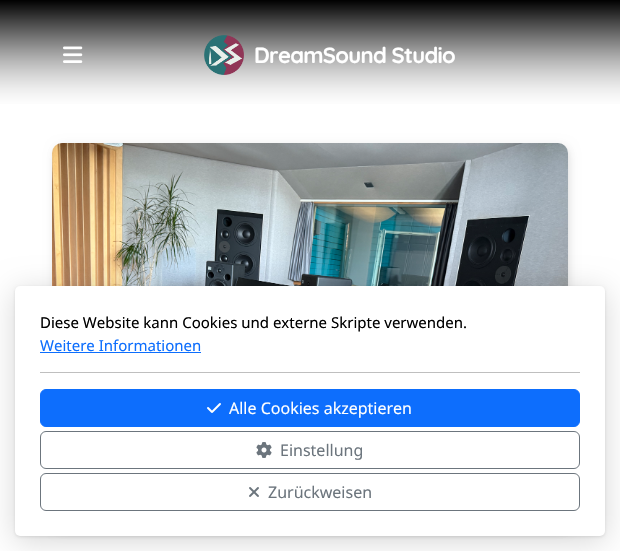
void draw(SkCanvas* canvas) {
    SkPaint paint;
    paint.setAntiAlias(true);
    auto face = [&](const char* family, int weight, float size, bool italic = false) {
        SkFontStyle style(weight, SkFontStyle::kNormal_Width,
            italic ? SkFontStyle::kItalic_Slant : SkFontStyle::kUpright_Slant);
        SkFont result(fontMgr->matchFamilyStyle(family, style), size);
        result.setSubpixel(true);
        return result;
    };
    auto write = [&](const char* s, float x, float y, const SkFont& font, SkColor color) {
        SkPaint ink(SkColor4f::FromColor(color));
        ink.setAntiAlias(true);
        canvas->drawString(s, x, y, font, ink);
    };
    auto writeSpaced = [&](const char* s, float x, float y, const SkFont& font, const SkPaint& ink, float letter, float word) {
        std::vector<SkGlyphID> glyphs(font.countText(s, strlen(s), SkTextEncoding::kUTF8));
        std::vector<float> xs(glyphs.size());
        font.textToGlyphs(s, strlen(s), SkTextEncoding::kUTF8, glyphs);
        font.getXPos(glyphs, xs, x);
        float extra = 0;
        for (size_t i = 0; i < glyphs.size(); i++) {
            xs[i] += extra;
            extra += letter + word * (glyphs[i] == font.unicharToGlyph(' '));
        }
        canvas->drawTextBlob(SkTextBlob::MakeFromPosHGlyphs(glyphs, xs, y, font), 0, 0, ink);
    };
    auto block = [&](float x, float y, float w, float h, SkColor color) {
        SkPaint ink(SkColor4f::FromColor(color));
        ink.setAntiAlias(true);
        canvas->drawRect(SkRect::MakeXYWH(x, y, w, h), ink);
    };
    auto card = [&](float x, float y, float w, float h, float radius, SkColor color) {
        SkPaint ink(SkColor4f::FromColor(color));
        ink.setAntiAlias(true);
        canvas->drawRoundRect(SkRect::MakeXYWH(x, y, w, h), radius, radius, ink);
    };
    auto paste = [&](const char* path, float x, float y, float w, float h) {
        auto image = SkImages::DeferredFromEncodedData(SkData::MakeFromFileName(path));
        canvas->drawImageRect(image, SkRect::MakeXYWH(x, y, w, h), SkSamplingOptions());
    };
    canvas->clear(SK_ColorWHITE);
    {
        const SkColor colors[] = {SK_ColorBLACK, SkColorSetRGB(67, 67, 67), SkColorSetRGB(117, 117, 117), SkColorSetRGB(158, 158, 158), SkColorSetRGB(184, 184, 184), SkColorSetRGB(206, 206, 206), SkColorSetRGB(223, 223, 223), SkColorSetRGB(236, 236, 236), SkColorSetRGB(244, 244, 244), SkColorSetRGB(250, 250, 250), SkColorSetRGB(253, 253, 253), SkColorSetRGB(254, 254, 254), SK_ColorWHITE};
        const float stops[] = {0, 0.19f, 0.34f, 0.47f, 0.56f, 0.65f, 0.73f, 0.8f, 0.86f, 0.91f, 0.95f, 0.98f, 1};
        const SkPoint ends[] = {{310, 0}, {310, 110}};
        paint.setShader(SkGradientShader::MakeLinear(ends, colors, stops, 13, SkTileMode::kClamp));
        paint.setAlpha(255);
    }
    canvas->drawRect(SkRect::MakeXYWH(0, 0, 620, 104), paint);
    paste("pic1.png", 63, 46, 20, 17);
    paste("pic2.png", 204, 35, 40, 40);
    auto kFont1 = face("Quicksand", 300, 22);
    paint.setShader(nullptr);
    paint.setColor(SK_ColorWHITE);
    writeSpaced("DreamSound Studio", 254, 63, kFont1, paint, -0.7f, 0);
    paint.setColor(SkColorSetARGB(13, 0, 0, 0));
    paint.setMaskFilter(SkMaskFilter::MakeBlur(kNormal_SkBlurStyle, 2.5f));
    canvas->drawRoundRect(SkRect::MakeXYWH(53, 146, 516, 387), 10, 10, paint);
    paint.setMaskFilter(nullptr);
    paint.setColor(SkColorSetARGB(26, 0, 0, 0));
    paint.setMaskFilter(SkMaskFilter::MakeBlur(kNormal_SkBlurStyle, 6));
    canvas->drawRoundRect(SkRect::MakeXYWH(56, 147, 512, 383), 8, 8, paint);
    paint.setMaskFilter(nullptr);
    card(52, 143, 516, 387, 10, SkColorSetRGB(245, 246, 247));
    paste("pic3.png", 52, 143, 516, 143);
    paint.setColor(SkColorSetARGB(41, 0, 0, 0));
    paint.setMaskFilter(SkMaskFilter::MakeBlur(kNormal_SkBlurStyle, 15));
    canvas->drawRoundRect(SkRect::MakeXYWH(15, 291, 590, 250), 5, 5, paint);
    paint.setMaskFilter(nullptr);
    paint.setColor(SkColorSetARGB(26, 0, 0, 0));
    paint.setMaskFilter(SkMaskFilter::MakeBlur(kNormal_SkBlurStyle, 1.5f));
    canvas->drawRoundRect(SkRect::MakeXYWH(15, 287, 590, 250), 5, 5, paint);
    paint.setMaskFilter(nullptr);
    card(15, 286, 590, 250, 5, SK_ColorWHITE);
    auto kFont2 = face("Noto Sans", 400, 15);
    write("Diese Website kann Cookies und externe Skripte verwenden.", 40, 328, kFont2, SK_ColorBLACK);
    write("Weitere Informationen", 40, 351, kFont2, SkColorSetRGB(13, 110, 253));
    block(40, 352, 161, 1, SkColorSetRGB(13, 110, 253));
    block(40, 372, 540, 1, SkColorSetRGB(191, 191, 191));
    paint.setColor(SkColorSetRGB(13, 110, 253));
    canvas->drawRoundRect(SkRect::MakeXYWH(40.5f, 389.5f, 539, 37), 5.5f, 5.5f, paint);
    paint.setStyle(SkPaint::kStroke_Style);
    paint.setStrokeWidth(1);
    canvas->drawRoundRect(SkRect::MakeXYWH(40.5f, 389.5f, 539, 37), 5.5f, 5.5f, paint);
    paste("pic4.png", 207, 403, 14, 10);
    auto kFont3 = face("Noto Sans", 400, 16);
    write("Alle Cookies akzeptieren", 229, 414, kFont3, SK_ColorWHITE);
    paint.setColor(SkColorSetRGB(108, 117, 125));
    canvas->drawRoundRect(SkRect::MakeXYWH(40.5f, 431.5f, 539, 37), 5.5f, 5.5f, paint);
    paste("pic5.png", 256, 442, 16, 16);
    write("Einstellung", 280, 456, kFont3, SkColorSetRGB(108, 117, 125));
    canvas->drawRoundRect(SkRect::MakeXYWH(40.5f, 473.5f, 539, 37), 5.5f, 5.5f, paint);
    paste("pic6.png", 249, 487, 10, 10);
    write("Zurückweisen", 268, 498, kFont3, SkColorSetRGB(108, 117, 125));
}
